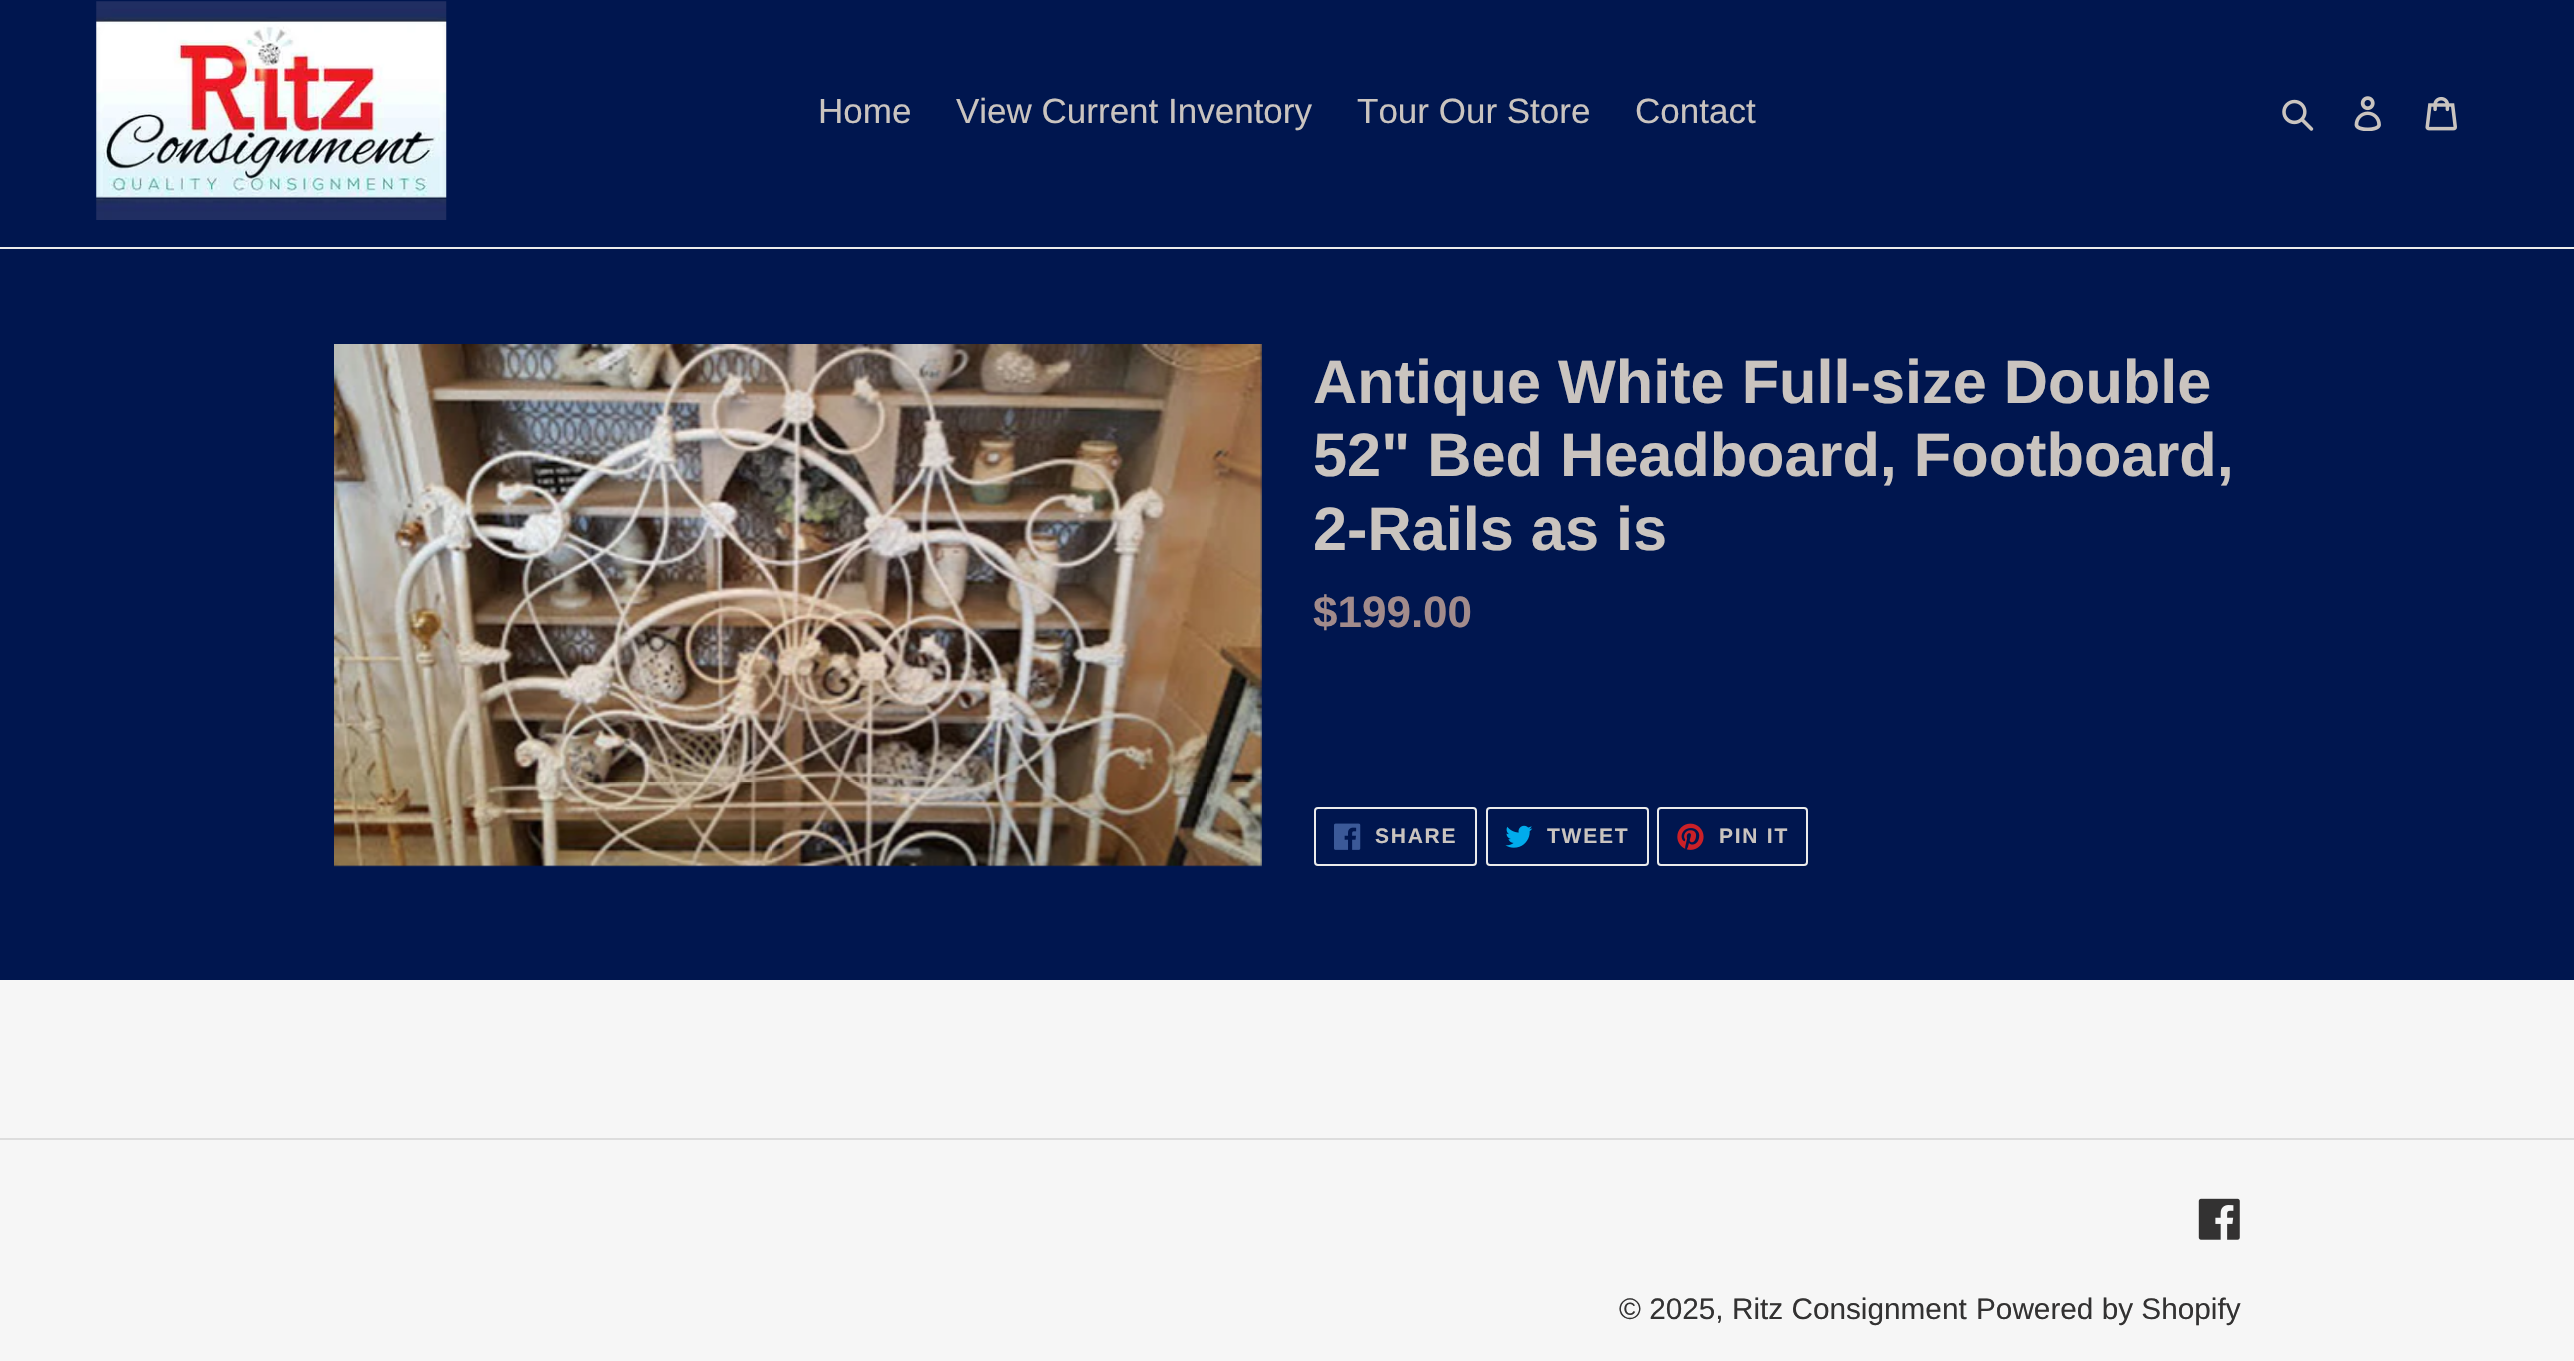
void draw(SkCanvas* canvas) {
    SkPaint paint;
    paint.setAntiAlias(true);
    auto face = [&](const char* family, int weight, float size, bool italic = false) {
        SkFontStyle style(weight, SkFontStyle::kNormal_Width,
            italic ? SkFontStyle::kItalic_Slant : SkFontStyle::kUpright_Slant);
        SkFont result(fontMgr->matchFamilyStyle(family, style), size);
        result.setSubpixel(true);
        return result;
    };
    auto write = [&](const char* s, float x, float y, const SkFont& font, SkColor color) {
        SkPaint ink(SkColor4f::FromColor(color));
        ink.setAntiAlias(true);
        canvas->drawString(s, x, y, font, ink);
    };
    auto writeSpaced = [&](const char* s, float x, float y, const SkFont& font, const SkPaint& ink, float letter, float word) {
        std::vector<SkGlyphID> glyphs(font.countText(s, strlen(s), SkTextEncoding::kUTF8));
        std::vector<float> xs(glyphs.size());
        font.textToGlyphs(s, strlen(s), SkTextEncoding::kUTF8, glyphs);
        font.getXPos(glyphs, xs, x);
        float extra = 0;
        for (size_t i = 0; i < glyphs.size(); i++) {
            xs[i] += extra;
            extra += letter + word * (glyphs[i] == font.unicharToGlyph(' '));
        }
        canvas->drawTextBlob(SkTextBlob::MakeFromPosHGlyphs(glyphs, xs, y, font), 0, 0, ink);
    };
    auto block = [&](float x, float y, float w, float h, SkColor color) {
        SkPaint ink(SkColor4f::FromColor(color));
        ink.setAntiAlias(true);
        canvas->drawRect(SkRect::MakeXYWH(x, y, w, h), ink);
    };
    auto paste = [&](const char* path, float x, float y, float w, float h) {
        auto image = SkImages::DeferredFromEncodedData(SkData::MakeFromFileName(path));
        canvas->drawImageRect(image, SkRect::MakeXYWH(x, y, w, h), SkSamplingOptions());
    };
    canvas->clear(SkColorSetRGB(0, 22, 79));
    block(0, 247, 2574, 2, SkColorSetRGB(235, 235, 235));
    paste("pic1.png", 96, 1, 351, 219);
    auto kFont1 = face("Liberation Sans", 400, 35);
    write("Home", 818, 123, kFont1, SkColorSetRGB(202, 196, 191));
    write("View Current Inventory", 956, 123, kFont1, SkColorSetRGB(202, 196, 191));
    write("Tour Our Store", 1357, 123, kFont1, SkColorSetRGB(202, 196, 191));
    write("Contact", 1635, 123, kFont1, SkColorSetRGB(202, 196, 191));
    paste("pic2.png", 2282, 99, 32, 32);
    paste("pic3.png", 2354, 96, 27, 35);
    paste("pic4.png", 2425, 96, 32, 35);
    paste("pic5.png", 334, 344, 928, 523);
    auto kFont2 = face("Liberation Sans", 700, 61.25f);
    write("Antique White Full-size Double", 1313, 403, kFont2, SkColorSetRGB(202, 196, 191));
    write("52\" Bed Headboard, Footboard,", 1313, 476, kFont2, SkColorSetRGB(202, 196, 191));
    write("2-Rails as is", 1313, 550, kFont2, SkColorSetRGB(202, 196, 191));
    auto kFont3 = face("Liberation Sans", 700, 44);
    write("$199.00", 1313, 627, kFont3, SkColorSetRGB(162, 139, 139));
    paint.setStyle(SkPaint::kStroke_Style);
    paint.setStrokeWidth(2);
    paint.setColor(SkColorSetRGB(235, 235, 235));
    canvas->drawRoundRect(SkRect::MakeXYWH(1315, 808, 161, 57), 3, 3, paint);
    paste("pic6.png", 1334, 823, 27, 27);
    auto kFont4 = face("Liberation Sans", 700, 21);
    paint.setStyle(SkPaint::kFill_Style);
    paint.setColor(SkColorSetRGB(202, 196, 191));
    writeSpaced("SHARE", 1375, 843, kFont4, paint, 1.75f, 0);
    paint.setStyle(SkPaint::kStroke_Style);
    paint.setColor(SkColorSetRGB(235, 235, 235));
    canvas->drawRoundRect(SkRect::MakeXYWH(1487, 808, 161, 57), 3, 3, paint);
    paste("pic7.png", 1505, 825, 28, 23);
    paint.setStyle(SkPaint::kFill_Style);
    paint.setColor(SkColorSetRGB(202, 196, 191));
    writeSpaced("TWEET", 1547, 843, kFont4, paint, 1.75f, 0);
    paint.setStyle(SkPaint::kStroke_Style);
    paint.setColor(SkColorSetRGB(235, 235, 235));
    canvas->drawRoundRect(SkRect::MakeXYWH(1658, 808, 149, 57), 3, 3, paint);
    paste("pic8.png", 1677, 823, 27, 27);
    paint.setStyle(SkPaint::kFill_Style);
    paint.setColor(SkColorSetRGB(202, 196, 191));
    writeSpaced("PIN IT", 1719, 843, kFont4, paint, 1.75f, 0);
    block(0, 980, 2574, 381, SkColorSetRGB(246, 246, 246));
    block(0, 1138, 2574, 2, SkColorSetRGB(221, 221, 221));
    paste("pic9.png", 2198, 1198, 42, 42);
    auto kFont5 = face("Liberation Sans", 400, 29.75f);
    write("© 2025, Ritz Consignment", 1619, 1319, kFont5, SkColorSetRGB(51, 50, 50));
    write("Powered by Shopify", 1976, 1319, kFont5, SkColorSetRGB(51, 50, 50));
}
